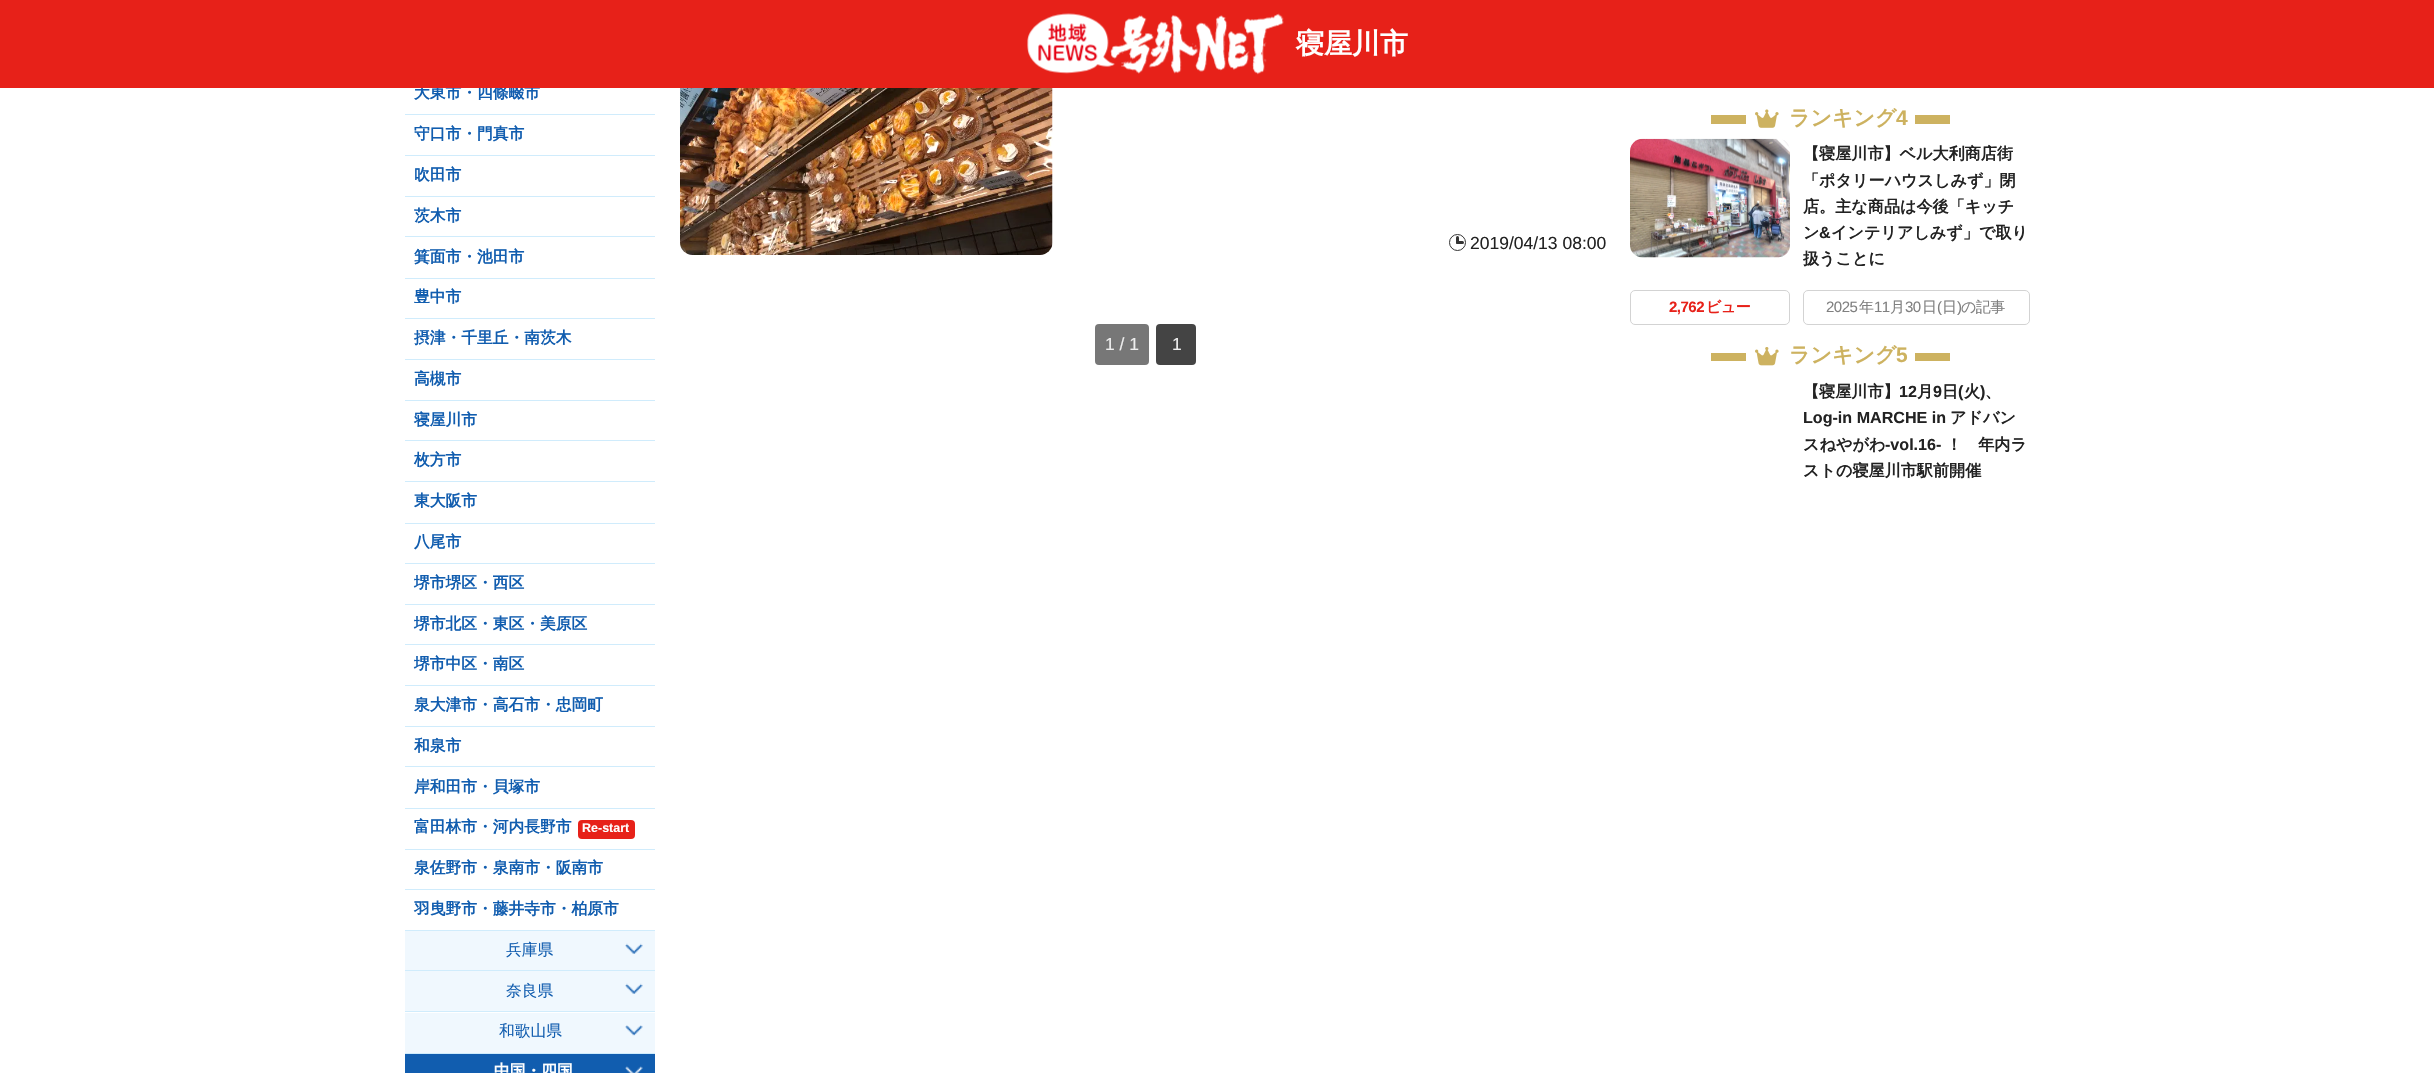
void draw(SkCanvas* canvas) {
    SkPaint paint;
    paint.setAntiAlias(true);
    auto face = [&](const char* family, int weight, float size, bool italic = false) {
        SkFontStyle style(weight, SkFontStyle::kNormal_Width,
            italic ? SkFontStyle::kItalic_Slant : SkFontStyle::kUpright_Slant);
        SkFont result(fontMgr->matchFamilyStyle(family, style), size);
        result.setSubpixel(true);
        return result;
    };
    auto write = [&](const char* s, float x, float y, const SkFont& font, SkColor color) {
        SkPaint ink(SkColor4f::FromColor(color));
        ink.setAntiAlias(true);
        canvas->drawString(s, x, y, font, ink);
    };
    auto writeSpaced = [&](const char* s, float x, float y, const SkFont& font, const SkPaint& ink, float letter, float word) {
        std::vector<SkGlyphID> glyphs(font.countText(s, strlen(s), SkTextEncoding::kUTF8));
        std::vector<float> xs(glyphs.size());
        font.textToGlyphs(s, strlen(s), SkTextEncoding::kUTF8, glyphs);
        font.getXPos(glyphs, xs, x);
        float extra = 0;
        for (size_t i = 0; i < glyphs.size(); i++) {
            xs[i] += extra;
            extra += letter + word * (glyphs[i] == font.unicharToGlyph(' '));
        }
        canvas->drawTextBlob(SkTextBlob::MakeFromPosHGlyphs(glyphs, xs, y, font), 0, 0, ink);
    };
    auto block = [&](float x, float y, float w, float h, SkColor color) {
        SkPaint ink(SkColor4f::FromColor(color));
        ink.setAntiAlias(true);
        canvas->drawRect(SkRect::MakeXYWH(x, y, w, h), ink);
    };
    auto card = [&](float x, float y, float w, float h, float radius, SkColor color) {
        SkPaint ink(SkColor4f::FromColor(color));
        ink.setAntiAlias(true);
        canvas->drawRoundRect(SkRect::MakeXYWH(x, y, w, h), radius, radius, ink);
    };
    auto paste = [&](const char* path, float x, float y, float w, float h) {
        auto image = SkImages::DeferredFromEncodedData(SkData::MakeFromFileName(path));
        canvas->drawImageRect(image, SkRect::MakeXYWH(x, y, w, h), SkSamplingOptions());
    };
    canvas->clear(SK_ColorWHITE);
    auto kFont1 = face("WenQuanYi Zen Hei", 700, 15.75f);
    write("大東市・四條畷市", 414, 98, kFont1, SkColorSetRGB(17, 93, 175));
    block(0, 0, 2434, 88, SkColorSetRGB(231, 33, 25));
    paste("pic1.png", 1027, 13, 257, 62);
    auto kFont2 = face("WenQuanYi Zen Hei", 700, 28);
    write("寝屋川市", 1296, 53, kFont2, SK_ColorWHITE);
    block(405, 1053, 250, 1, SkColorSetRGB(208, 236, 252));
    block(405, 114, 250, 1, SkColorSetRGB(208, 236, 252));
    block(405, 155, 250, 1, SkColorSetRGB(208, 236, 252));
    write("守口市・門真市", 414, 139, kFont1, SkColorSetRGB(17, 93, 175));
    block(405, 196, 250, 1, SkColorSetRGB(208, 236, 252));
    write("吹田市", 414, 180, kFont1, SkColorSetRGB(17, 93, 175));
    block(405, 236, 250, 1, SkColorSetRGB(208, 236, 252));
    write("茨木市", 414, 221, kFont1, SkColorSetRGB(17, 93, 175));
    block(405, 278, 250, 1, SkColorSetRGB(208, 236, 252));
    write("箕面市・池田市", 414, 262, kFont1, SkColorSetRGB(17, 93, 175));
    block(405, 318, 250, 1, SkColorSetRGB(208, 236, 252));
    write("豊中市", 414, 302, kFont1, SkColorSetRGB(17, 93, 175));
    block(405, 359, 250, 1, SkColorSetRGB(208, 236, 252));
    write("摂津・千里丘・南茨木", 414, 343, kFont1, SkColorSetRGB(17, 93, 175));
    block(405, 400, 250, 1, SkColorSetRGB(208, 236, 252));
    write("高槻市", 414, 384, kFont1, SkColorSetRGB(17, 93, 175));
    block(405, 440, 250, 1, SkColorSetRGB(208, 236, 252));
    write("寝屋川市", 414, 425, kFont1, SkColorSetRGB(17, 93, 175));
    block(405, 481, 250, 1, SkColorSetRGB(208, 236, 252));
    write("枚方市", 414, 465, kFont1, SkColorSetRGB(17, 93, 175));
    block(405, 523, 250, 1, SkColorSetRGB(208, 236, 252));
    write("東大阪市", 414, 506, kFont1, SkColorSetRGB(17, 93, 175));
    block(405, 563, 250, 1, SkColorSetRGB(208, 236, 252));
    write("八尾市", 414, 547, kFont1, SkColorSetRGB(17, 93, 175));
    block(405, 604, 250, 1, SkColorSetRGB(208, 236, 252));
    write("堺市堺区・西区", 414, 588, kFont1, SkColorSetRGB(17, 93, 175));
    block(405, 644, 250, 1, SkColorSetRGB(208, 236, 252));
    write("堺市北区・東区・美原区", 414, 629, kFont1, SkColorSetRGB(17, 93, 175));
    block(405, 685, 250, 1, SkColorSetRGB(208, 236, 252));
    write("堺市中区・南区", 414, 669, kFont1, SkColorSetRGB(17, 93, 175));
    block(405, 726, 250, 1, SkColorSetRGB(208, 236, 252));
    write("泉大津市・高石市・忠岡町", 414, 710, kFont1, SkColorSetRGB(17, 93, 175));
    block(405, 766, 250, 1, SkColorSetRGB(208, 236, 252));
    write("和泉市", 414, 751, kFont1, SkColorSetRGB(17, 93, 175));
    block(405, 808, 250, 1, SkColorSetRGB(208, 236, 252));
    write("岸和田市・貝塚市", 414, 792, kFont1, SkColorSetRGB(17, 93, 175));
    block(405, 849, 250, 1, SkColorSetRGB(208, 236, 252));
    write("富田林市・河内長野市", 414, 832, kFont1, SkColorSetRGB(17, 93, 175));
    card(578, 820, 57, 19, 4, SkColorSetRGB(231, 33, 25));
    auto kFont3 = face("Liberation Sans", 700, 12.5f);
    write("Re-start", 582, 832, kFont3, SK_ColorWHITE);
    block(405, 889, 250, 1, SkColorSetRGB(208, 236, 252));
    write("泉佐野市・泉南市・阪南市", 414, 873, kFont1, SkColorSetRGB(17, 93, 175));
    write("羽曳野市・藤井寺市・柏原市", 414, 914, kFont1, SkColorSetRGB(17, 93, 175));
    block(405, 930, 250, 1, SkColorSetRGB(208, 236, 252));
    block(405, 931, 250, 39, SkColorSetRGB(240, 248, 254));
    auto kFont4 = face("WenQuanYi Zen Hei", 500, 15.75f);
    write("兵庫県", 506, 955, kFont4, SkColorSetRGB(17, 93, 175));
    paste("pic2.png", 625, 943, 18, 11);
    block(405, 970, 250, 1, SkColorSetRGB(208, 236, 252));
    block(405, 971, 250, 40, SkColorSetRGB(240, 248, 254));
    write("奈良県", 506, 996, kFont4, SkColorSetRGB(17, 93, 175));
    paste("pic2.png", 625, 983, 18, 11);
    block(405, 1011, 250, 1, SkColorSetRGB(208, 236, 252));
    block(405, 1013, 250, 40, SkColorSetRGB(240, 248, 254));
    write("和歌山県", 499, 1036, kFont4, SkColorSetRGB(17, 93, 175));
    paste("pic3.png", 625, 1025, 18, 11);
    block(405, 1054, 250, 19, SkColorSetRGB(17, 93, 175));
    write("中国・四国", 494, 1076, kFont1, SK_ColorWHITE);
    paste("pic4.png", 625, 1066, 18, 7);
    paste("pic5.png", 680, 88, 373, 167);
    paint.setStyle(SkPaint::kStroke_Style);
    paint.setStrokeWidth(1);
    paint.setColor(SkColorSetRGB(51, 51, 51));
    canvas->drawCircle(1457.5f, 242.5f, 8, paint);
    card(1456, 236, 3, 8, 1.5f, SkColorSetRGB(51, 51, 51));
    card(1456, 241, 8, 3, 1.5f, SkColorSetRGB(51, 51, 51));
    auto kFont5 = face("Liberation Sans", 400, 17.5f);
    write("2019/04/13 08:00", 1470, 249, kFont5, SkColorSetRGB(34, 34, 34));
    card(1095, 324, 54, 41, 4, SkColorSetRGB(119, 119, 119));
    write("1 / 1", 1105, 350, kFont5, SkColorSetRGB(238, 238, 238));
    card(1156, 324, 40, 41, 4, SkColorSetRGB(68, 68, 68));
    write("1", 1172, 350, kFont5, SkColorSetRGB(238, 238, 238));
    block(1711, 115, 35, 9, SkColorSetRGB(205, 178, 96));
    paste("pic6.png", 1755, 109, 24, 19);
    auto kFont6 = face("WenQuanYi Zen Hei", 700, 21);
    write("ランキング", 1789, 125, kFont6, SkColorSetRGB(205, 178, 96));
    auto kFont7 = face("Liberation Sans", 700, 21);
    write("4", 1896, 125, kFont7, SkColorSetRGB(205, 178, 96));
    block(1915, 115, 35, 9, SkColorSetRGB(205, 178, 96));
    paste("pic7.png", 1630, 138, 160, 120);
    auto kFont8 = face("WenQuanYi Zen Hei", 700, 16.1f);
    write("【寝屋川市】ベル大利商店街", 1803, 159, kFont8, SkColorSetRGB(34, 34, 34));
    write("「ポタリーハウスしみず」閉", 1803, 186, kFont8, SkColorSetRGB(34, 34, 34));
    write("店。主な商品は今後「キッチ", 1803, 212, kFont8, SkColorSetRGB(34, 34, 34));
    write("ン", 1803, 238, kFont8, SkColorSetRGB(34, 34, 34));
    auto kFont9 = face("Liberation Sans", 700, 16.1f);
    write("&", 1819, 238, kFont9, SkColorSetRGB(34, 34, 34));
    write("インテリアしみず」で取り", 1831, 238, kFont8, SkColorSetRGB(34, 34, 34));
    write("扱うことに", 1803, 264, kFont8, SkColorSetRGB(34, 34, 34));
    paint.setColor(SkColorSetRGB(211, 211, 211));
    canvas->drawRoundRect(SkRect::MakeXYWH(1630.5f, 290.5f, 159, 34), 4.5f, 4.5f, paint);
    auto kFont10 = face("Liberation Sans", 700, 15);
    paint.setStyle(SkPaint::kFill_Style);
    paint.setColor(SkColorSetRGB(231, 33, 25));
    writeSpaced("2,762", 1669, 312, kFont10, paint, -0.5f, 0);
    auto kFont11 = face("WenQuanYi Zen Hei", 700, 15);
    writeSpaced("ビュー", 1706, 312, kFont11, paint, -0.5f, 0);
    paint.setStyle(SkPaint::kStroke_Style);
    paint.setColor(SkColorSetRGB(211, 211, 211));
    canvas->drawRoundRect(SkRect::MakeXYWH(1803.5f, 290.5f, 226, 34), 4.5f, 4.5f, paint);
    auto kFont12 = face("Liberation Sans", 400, 15);
    paint.setStyle(SkPaint::kFill_Style);
    paint.setColor(SkColorSetRGB(128, 128, 128));
    writeSpaced("2025", 1826, 312, kFont12, paint, -0.5f, 0);
    auto kFont13 = face("WenQuanYi Zen Hei", 500, 15);
    writeSpaced("年", 1859, 312, kFont13, paint, -0.5f, 0);
    writeSpaced("11", 1874, 312, kFont12, paint, -0.5f, 0);
    writeSpaced("月", 1890, 312, kFont13, paint, -0.5f, 0);
    writeSpaced("30", 1905, 312, kFont12, paint, -0.5f, 0);
    writeSpaced("日", 1922, 312, kFont13, paint, -0.5f, 0);
    writeSpaced("(", 1937, 312, kFont12, paint, -0.5f, 0);
    writeSpaced("日", 1942, 312, kFont13, paint, -0.5f, 0);
    writeSpaced(")", 1957, 312, kFont12, paint, -0.5f, 0);
    writeSpaced("の記事", 1961, 312, kFont13, paint, -0.5f, 0);
    block(1711, 353, 35, 8, SkColorSetRGB(205, 178, 96));
    paste("pic8.png", 1755, 347, 24, 19);
    write("ランキング", 1789, 362, kFont6, SkColorSetRGB(205, 178, 96));
    write("5", 1896, 362, kFont7, SkColorSetRGB(205, 178, 96));
    block(1915, 353, 35, 8, SkColorSetRGB(205, 178, 96));
    write("【寝屋川市】", 1803, 397, kFont8, SkColorSetRGB(34, 34, 34));
    write("12", 1899, 397, kFont9, SkColorSetRGB(34, 34, 34));
    write("月", 1917, 397, kFont8, SkColorSetRGB(34, 34, 34));
    write("9", 1933, 397, kFont9, SkColorSetRGB(34, 34, 34));
    write("日", 1942, 397, kFont8, SkColorSetRGB(34, 34, 34));
    write("(", 1958, 397, kFont9, SkColorSetRGB(34, 34, 34));
    write("火", 1964, 397, kFont8, SkColorSetRGB(34, 34, 34));
    write(")", 1980, 397, kFont9, SkColorSetRGB(34, 34, 34));
    write("、", 1985, 397, kFont8, SkColorSetRGB(34, 34, 34));
    write("Log-in MARCHE in", 1803, 423, kFont9, SkColorSetRGB(34, 34, 34));
    write("アドバン", 1950, 423, kFont8, SkColorSetRGB(34, 34, 34));
    write("スねやがわ", 1803, 450, kFont8, SkColorSetRGB(34, 34, 34));
    write("-vol.16-", 1885, 450, kFont9, SkColorSetRGB(34, 34, 34));
    write("！　年内ラ", 1946, 450, kFont8, SkColorSetRGB(34, 34, 34));
    write("ストの寝屋川市駅前開催", 1803, 476, kFont8, SkColorSetRGB(34, 34, 34));
}
